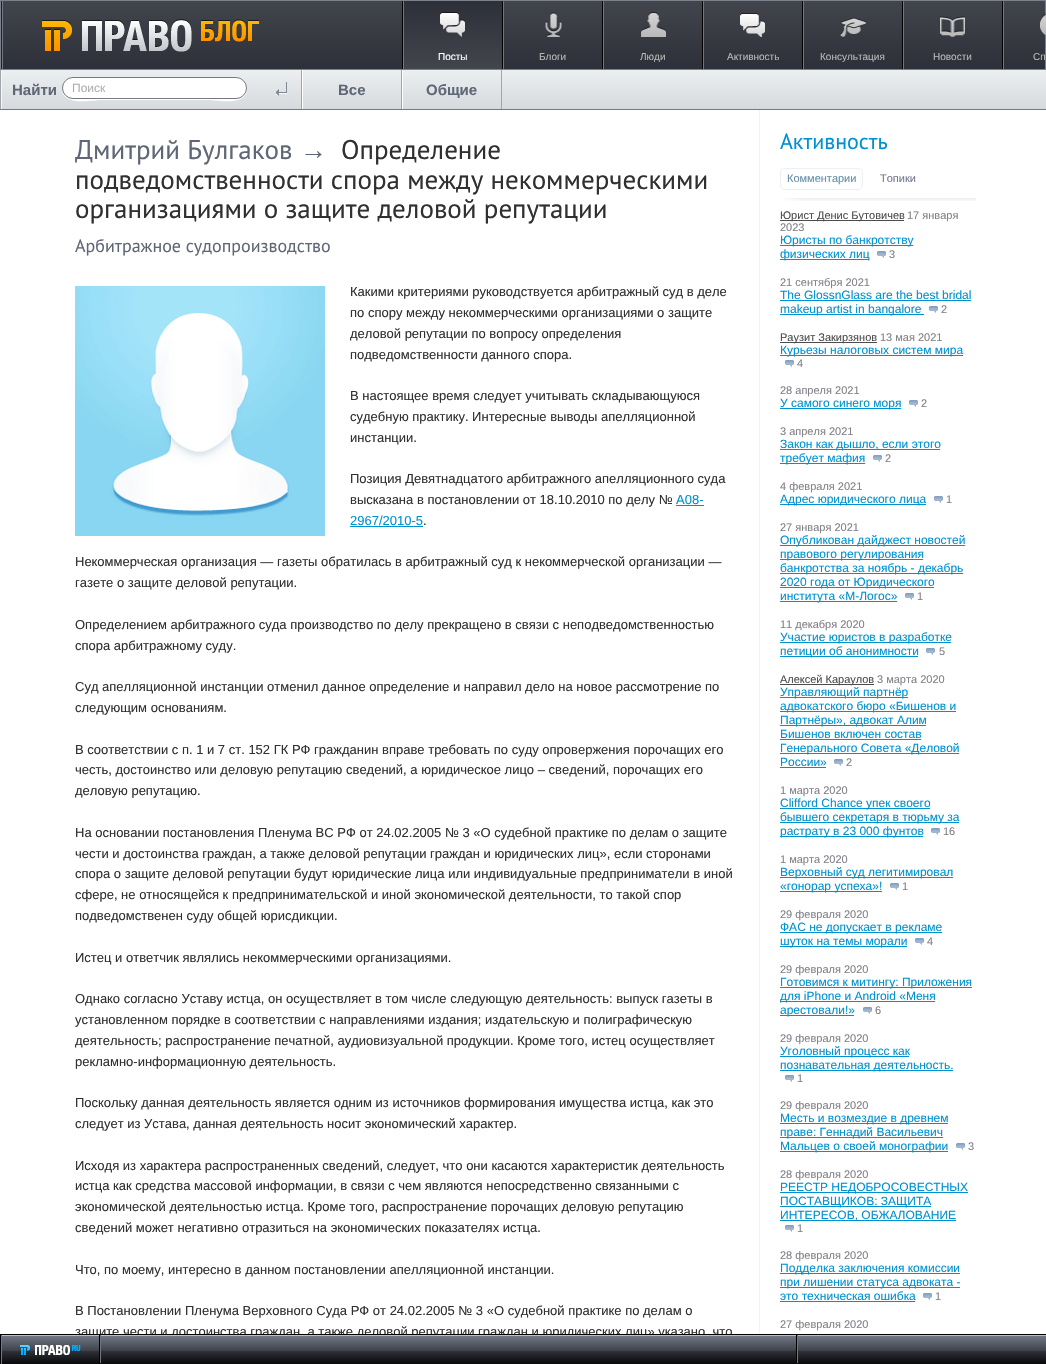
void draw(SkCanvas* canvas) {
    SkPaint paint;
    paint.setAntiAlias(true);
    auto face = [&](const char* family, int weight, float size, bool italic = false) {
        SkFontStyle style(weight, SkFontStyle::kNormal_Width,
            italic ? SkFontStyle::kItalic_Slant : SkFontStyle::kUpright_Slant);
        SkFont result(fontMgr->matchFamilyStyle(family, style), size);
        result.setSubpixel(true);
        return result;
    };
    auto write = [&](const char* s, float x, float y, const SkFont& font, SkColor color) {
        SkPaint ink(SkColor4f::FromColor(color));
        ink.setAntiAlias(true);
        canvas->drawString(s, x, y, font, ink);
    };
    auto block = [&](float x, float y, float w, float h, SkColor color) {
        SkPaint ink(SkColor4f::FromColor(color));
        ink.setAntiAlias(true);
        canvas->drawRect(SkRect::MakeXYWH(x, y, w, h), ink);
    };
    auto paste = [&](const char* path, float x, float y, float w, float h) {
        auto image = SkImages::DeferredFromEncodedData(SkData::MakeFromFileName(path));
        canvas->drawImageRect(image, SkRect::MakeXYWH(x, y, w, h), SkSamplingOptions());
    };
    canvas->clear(SK_ColorWHITE);
    {
        const SkColor colors[] = {SkColorSetRGB(66, 69, 76), SkColorSetRGB(45, 48, 56)};
        const float stops[] = {0, 1};
        const SkPoint ends[] = {{1, 1}, {1, 69}};
        paint.setShader(SkGradientShader::MakeLinear(ends, colors, stops, 2, SkTileMode::kClamp));
        paint.setAlpha(255);
    }
    canvas->drawRect(SkRect::MakeXYWH(3, 1, 1042, 68), paint);
    paint.setStyle(SkPaint::kStroke_Style);
    paint.setStrokeWidth(1);
    paint.setShader(nullptr);
    paint.setColor(SkColorSetRGB(122, 130, 142));
    canvas->drawRect(SkRect::MakeXYWH(0.5f, 0.5f, 1045, 69), paint);
    block(1, 1, 1, 68, SkColorSetRGB(30, 32, 35));
    block(2, 1, 1, 68, SkColorSetRGB(116, 119, 128));
    paste("pic1.png", 42, 19, 217, 33);
    block(402, 1, 1, 68, SK_ColorBLACK);
    block(502, 1, 1, 68, SK_ColorBLACK);
    paint.setStyle(SkPaint::kFill_Style);
    {
        const SkColor colors[] = {SkColorSetRGB(45, 48, 56), SkColorSetRGB(66, 69, 76)};
        const float stops[] = {0, 1};
        const SkPoint ends[] = {{404, 1}, {404, 69}};
        paint.setShader(SkGradientShader::MakeLinear(ends, colors, stops, 2, SkTileMode::kClamp));
        paint.setAlpha(255);
    }
    canvas->drawRect(SkRect::MakeXYWH(404, 1, 98, 68), paint);
    block(403, 1, 1, 68, SkColorSetRGB(116, 119, 128));
    paste("pic2.png", 440, 12, 25, 25);
    auto kFont1 = face("Liberation Sans", 400, 10);
    write("Посты", 438, 60, kFont1, SK_ColorWHITE);
    block(602, 1, 1, 68, SK_ColorBLACK);
    block(503, 1, 1, 68, SkColorSetRGB(116, 119, 128));
    paste("pic3.png", 545, 12, 17, 25);
    write("Блоги", 539, 60, kFont1, SkColorSetRGB(184, 184, 184));
    block(702, 1, 1, 68, SK_ColorBLACK);
    block(603, 1, 1, 68, SkColorSetRGB(116, 119, 128));
    paste("pic4.png", 641, 12, 25, 25);
    write("Люди", 640, 60, kFont1, SkColorSetRGB(184, 184, 184));
    block(802, 1, 1, 68, SK_ColorBLACK);
    block(703, 1, 1, 68, SkColorSetRGB(116, 119, 128));
    paste("pic5.png", 740, 13, 25, 24);
    write("Активность", 727, 60, kFont1, SkColorSetRGB(184, 184, 184));
    block(902, 1, 1, 68, SK_ColorBLACK);
    block(803, 1, 1, 68, SkColorSetRGB(116, 119, 128));
    paste("pic6.png", 840, 17, 26, 20);
    write("Консультация", 820, 60, kFont1, SkColorSetRGB(184, 184, 184));
    block(1002, 1, 1, 68, SK_ColorBLACK);
    block(903, 1, 1, 68, SkColorSetRGB(116, 119, 128));
    paste("pic7.png", 940, 16, 25, 21);
    write("Новости", 933, 60, kFont1, SkColorSetRGB(184, 184, 184));
    block(1003, 1, 1, 68, SkColorSetRGB(116, 119, 128));
    paste("pic8.png", 1040, 13, 6, 23);
    write("Сп", 1033, 60, kFont1, SkColorSetRGB(184, 184, 184));
    {
        const SkColor colors[] = {SkColorSetRGB(236, 239, 241), SkColorSetRGB(214, 218, 221)};
        const float stops[] = {0, 1};
        const SkPoint ends[] = {{0, 70}, {0, 109}};
        paint.setShader(SkGradientShader::MakeLinear(ends, colors, stops, 2, SkTileMode::kClamp));
        paint.setAlpha(255);
    }
    canvas->drawRect(SkRect::MakeXYWH(2, 70, 1044, 39), paint);
    block(0, 109, 1046, 1, SkColorSetRGB(117, 120, 126));
    block(0, 70, 1, 39, SkColorSetRGB(159, 164, 173));
    block(301, 70, 1, 39, SkColorSetRGB(159, 164, 173));
    block(1, 70, 1, 39, SkColorSetRGB(246, 247, 247));
    auto kFont2 = face("Liberation Sans", 700, 15);
    write("Найти", 12, 95, kFont2, SkColorSetRGB(95, 103, 118));
    paint.setShader(nullptr);
    paint.setColor(SK_ColorWHITE);
    canvas->drawPath(SkPathBuilder().moveTo(62, 88).cubicTo(61, 107, 94, 100, 100, 100).lineTo(209, 100).cubicTo(215, 100, 248, 107, 247, 88).cubicTo(247, 94, 242, 99, 236, 99).lineTo(73, 99).cubicTo(67, 99, 62, 94, 62, 88).close().detach(), paint);
    canvas->drawRoundRect(SkRect::MakeXYWH(62.5f, 77.5f, 184, 21), 10.5f, 10.5f, paint);
    paint.setStyle(SkPaint::kStroke_Style);
    paint.setColor(SkColorSetRGB(120, 122, 129));
    canvas->drawRoundRect(SkRect::MakeXYWH(62.5f, 77.5f, 184, 21), 10.5f, 10.5f, paint);
    auto kFont3 = face("Liberation Sans", 400, 12);
    write("Поиск", 72, 92, kFont3, SkColorSetRGB(175, 175, 175));
    paste("pic9.png", 276, 82, 11, 14);
    block(401, 70, 1, 39, SkColorSetRGB(159, 164, 173));
    block(302, 70, 1, 39, SK_ColorWHITE);
    write("Все", 338, 95, kFont2, SkColorSetRGB(95, 103, 118));
    block(501, 70, 1, 39, SkColorSetRGB(159, 164, 173));
    block(402, 70, 1, 39, SK_ColorWHITE);
    write("Общие", 426, 95, kFont2, SkColorSetRGB(95, 103, 118));
    auto kFont4 = face("PT Sans", 400, 27);
    write("Дмитрий Булгаков", 75, 159, kFont4, SkColorSetRGB(95, 103, 118));
    auto kFont5 = face("Liberation Sans", 400, 27);
    write("→", 300, 159, kFont5, SkColorSetRGB(95, 103, 118));
    write("Определение", 341, 159, kFont4, SkColorSetRGB(48, 48, 48));
    write("подведомственности спора между некоммерческими", 75, 189, kFont4, SkColorSetRGB(48, 48, 48));
    write("организациями о защите деловой репутации", 75, 218, kFont4, SkColorSetRGB(48, 48, 48));
    auto kFont6 = face("PT Sans", 400, 18);
    write("Арбитражное судопроизводство", 75, 252, kFont6, SkColorSetRGB(95, 103, 118));
    paste("pic10.png", 75, 286, 250, 250);
    auto kFont7 = face("Liberation Sans", 400, 13);
    write("Какими критериями руководствуется арбитражный суд в деле", 350, 296, kFont7, SkColorSetRGB(48, 48, 48));
    write("по спору между некоммерческими организациями о защите", 350, 317, kFont7, SkColorSetRGB(48, 48, 48));
    write("деловой репутации по вопросу определения", 350, 338, kFont7, SkColorSetRGB(48, 48, 48));
    write("подведомственности данного спора.", 350, 359, kFont7, SkColorSetRGB(48, 48, 48));
    write("В настоящее время следует учитывать складывающуюся", 350, 400, kFont7, SkColorSetRGB(48, 48, 48));
    write("судебную практику. Интересные выводы апелляционной", 350, 421, kFont7, SkColorSetRGB(48, 48, 48));
    write("инстанции.", 350, 442, kFont7, SkColorSetRGB(48, 48, 48));
    write("Позиция Девятнадцатого арбитражного апелляционного суда", 350, 483, kFont7, SkColorSetRGB(48, 48, 48));
    write("высказана в постановлении от 18.10.2010 по делу №", 350, 504, kFont7, SkColorSetRGB(48, 48, 48));
    write("А08-", 676, 504, kFont7, SkColorSetRGB(0, 145, 209));
    block(676, 505, 28, 1, SkColorSetRGB(0, 145, 209));
    write("2967/2010-5", 350, 525, kFont7, SkColorSetRGB(0, 145, 209));
    block(350, 526, 73, 1, SkColorSetRGB(0, 145, 209));
    write(".", 423, 525, kFont7, SkColorSetRGB(48, 48, 48));
    write("Некоммерческая организация — газеты обратилась в арбитражный суд к некоммерческой организации —", 75, 566, kFont7, SkColorSetRGB(48, 48, 48));
    write("газете о защите деловой репутации.", 75, 587, kFont7, SkColorSetRGB(48, 48, 48));
    write("Определением арбитражного суда производство по делу прекращено в связи с неподведомственностью", 75, 629, kFont7, SkColorSetRGB(48, 48, 48));
    write("спора арбитражному суду.", 75, 650, kFont7, SkColorSetRGB(48, 48, 48));
    write("Суд апелляционной инстанции отменил данное определение и направил дело на новое рассмотрение по", 75, 691, kFont7, SkColorSetRGB(48, 48, 48));
    write("следующим основаниям.", 75, 712, kFont7, SkColorSetRGB(48, 48, 48));
    write("В соответствии с п. 1 и 7 ст. 152 ГК РФ гражданин вправе требовать по суду опровержения порочащих его", 75, 754, kFont7, SkColorSetRGB(48, 48, 48));
    write("честь, достоинство или деловую репутацию сведений, а юридическое лицо – сведений, порочащих его", 75, 774, kFont7, SkColorSetRGB(48, 48, 48));
    write("деловую репутацию.", 75, 795, kFont7, SkColorSetRGB(48, 48, 48));
    write("На основании постановления Пленума ВС РФ от 24.02.2005 № 3 «О судебной практике по делам о защите", 75, 837, kFont7, SkColorSetRGB(48, 48, 48));
    write("чести и достоинства граждан, а также деловой репутации граждан и юридических лиц», если сторонами", 75, 858, kFont7, SkColorSetRGB(48, 48, 48));
    write("спора о защите деловой репутации будут юридические лица или индивидуальные предприниматели в иной", 75, 878, kFont7, SkColorSetRGB(48, 48, 48));
    write("сфере, не относящейся к предпринимательской и иной экономической деятельности, то такой спор", 75, 899, kFont7, SkColorSetRGB(48, 48, 48));
    write("подведомственен суду общей юрисдикции.", 75, 920, kFont7, SkColorSetRGB(48, 48, 48));
    write("Истец и ответчик являлись некоммерческими организациями.", 75, 962, kFont7, SkColorSetRGB(48, 48, 48));
    write("Однако согласно Уставу истца, он осуществляет в том числе следующую деятельность: выпуск газеты в", 75, 1003, kFont7, SkColorSetRGB(48, 48, 48));
    write("установленном порядке в соответствии с направлениями издания; издательскую и полиграфическую", 75, 1024, kFont7, SkColorSetRGB(48, 48, 48));
    write("деятельность; распространение печатной, аудиовизуальной продукции. Кроме того, истец осуществляет", 75, 1045, kFont7, SkColorSetRGB(48, 48, 48));
    write("рекламно-информационную деятельность.", 75, 1066, kFont7, SkColorSetRGB(48, 48, 48));
    write("Поскольку данная деятельность является одним из источников формирования имущества истца, как это", 75, 1107, kFont7, SkColorSetRGB(48, 48, 48));
    write("следует из Устава, данная деятельность носит экономический характер.", 75, 1128, kFont7, SkColorSetRGB(48, 48, 48));
    write("Исходя из характера распространенных сведений, следует, что они касаются характеристик деятельность", 75, 1170, kFont7, SkColorSetRGB(48, 48, 48));
    write("истца как средства массовой информации, в связи с чем являются непосредственно связанными с", 75, 1190, kFont7, SkColorSetRGB(48, 48, 48));
    write("экономической деятельностью истца. Кроме того, распространение порочащих деловую репутацию", 75, 1211, kFont7, SkColorSetRGB(48, 48, 48));
    write("сведений может негативно отразиться на экономических показателях истца.", 75, 1232, kFont7, SkColorSetRGB(48, 48, 48));
    write("Что, по моему, интересно в данном постановлении апелляционной инстанции.", 75, 1274, kFont7, SkColorSetRGB(48, 48, 48));
    write("В Постановлении Пленума Верховного Суда РФ от 24.02.2005 № 3 «О судебной практике по делам о", 75, 1315, kFont7, SkColorSetRGB(48, 48, 48));
    write("защите чести и достоинства граждан, а также деловой репутации граждан и юридических лиц» указано, что", 75, 1336, kFont7, SkColorSetRGB(48, 48, 48));
    block(759, 110, 1, 1224, SkColorSetRGB(241, 243, 245));
    auto kFont8 = face("PT Sans", 400, 22);
    write("Активность", 780, 149, kFont8, SkColorSetRGB(0, 145, 209));
    paint.setColor(SkColorSetRGB(235, 240, 244));
    canvas->drawRoundRect(SkRect::MakeXYWH(780.5f, 168.5f, 82, 21), 4.5f, 4.5f, paint);
    auto kFont9 = face("Liberation Sans", 400, 11);
    write("Комментарии", 787, 182, kFont9, SkColorSetRGB(98, 143, 165));
    write("Топики", 880, 182, kFont9, SkColorSetRGB(114, 122, 144));
    paste("pic11.png", 784, 198, 192, 3);
    block(780, 220, 124, 1, SkColorSetRGB(76, 76, 76));
    write("Юрист Денис Бутовичев", 780, 219, kFont9, SkColorSetRGB(76, 76, 76));
    write("17 января", 907, 219, kFont9, SkColorSetRGB(129, 129, 137));
    write("2023", 780, 231, kFont9, SkColorSetRGB(129, 129, 137));
    block(780, 245, 133, 1, SkColorSetRGB(0, 145, 209));
    write("Юристы по банкротству", 780, 244, kFont3, SkColorSetRGB(0, 145, 209));
    block(780, 259, 89, 1, SkColorSetRGB(0, 145, 209));
    write("физических лиц", 780, 258, kFont3, SkColorSetRGB(0, 145, 209));
    paste("pic12.png", 877, 251, 9, 7);
    write("3", 889, 258, kFont9, SkColorSetRGB(129, 129, 137));
    write("21 сентября 2021", 780, 286, kFont9, SkColorSetRGB(129, 129, 137));
    write("The GlossnGlass are the best bridal", 780, 299, kFont3, SkColorSetRGB(0, 145, 209));
    block(780, 300, 191, 1, SkColorSetRGB(0, 145, 209));
    block(780, 314, 144, 1, SkColorSetRGB(0, 145, 209));
    write("makeup artist in bangalore", 780, 313, kFont3, SkColorSetRGB(0, 145, 209));
    paste("pic12.png", 929, 306, 9, 7);
    write("2", 941, 313, kFont9, SkColorSetRGB(129, 129, 137));
    block(780, 342, 97, 1, SkColorSetRGB(76, 76, 76));
    write("Раузит Закирзянов", 780, 341, kFont9, SkColorSetRGB(76, 76, 76));
    write("13 мая 2021", 880, 341, kFont9, SkColorSetRGB(129, 129, 137));
    block(780, 355, 183, 1, SkColorSetRGB(0, 145, 209));
    write("Курьезы налоговых систем мира", 780, 354, kFont3, SkColorSetRGB(0, 145, 209));
    paste("pic12.png", 785, 360, 9, 7);
    write("4", 797, 367, kFont9, SkColorSetRGB(129, 129, 137));
    write("28 апреля 2021", 780, 394, kFont9, SkColorSetRGB(129, 129, 137));
    block(780, 408, 121, 1, SkColorSetRGB(0, 145, 209));
    write("У самого синего моря", 780, 407, kFont3, SkColorSetRGB(0, 145, 209));
    paste("pic12.png", 909, 400, 9, 7);
    write("2", 921, 407, kFont9, SkColorSetRGB(129, 129, 137));
    write("3 апреля 2021", 780, 435, kFont9, SkColorSetRGB(129, 129, 137));
    block(780, 449, 160, 1, SkColorSetRGB(0, 145, 209));
    write("Закон как дышло, если этого", 780, 448, kFont3, SkColorSetRGB(0, 145, 209));
    block(780, 463, 85, 1, SkColorSetRGB(0, 145, 209));
    write("требует мафия", 780, 462, kFont3, SkColorSetRGB(0, 145, 209));
    paste("pic12.png", 873, 455, 9, 7);
    write("2", 885, 462, kFont9, SkColorSetRGB(129, 129, 137));
    write("4 февраля 2021", 780, 490, kFont9, SkColorSetRGB(129, 129, 137));
    block(780, 504, 146, 1, SkColorSetRGB(0, 145, 209));
    write("Адрес юридического лица", 780, 503, kFont3, SkColorSetRGB(0, 145, 209));
    paste("pic12.png", 934, 496, 9, 7);
    write("1", 946, 503, kFont9, SkColorSetRGB(129, 129, 137));
    write("27 января 2021", 780, 531, kFont9, SkColorSetRGB(129, 129, 137));
    block(780, 545, 185, 1, SkColorSetRGB(0, 145, 209));
    write("Опубликован дайджест новостей", 780, 544, kFont3, SkColorSetRGB(0, 145, 209));
    block(780, 559, 143, 1, SkColorSetRGB(0, 145, 209));
    write("правового регулирования", 780, 558, kFont3, SkColorSetRGB(0, 145, 209));
    block(780, 573, 183, 1, SkColorSetRGB(0, 145, 209));
    write("банкротства за ноябрь - декабрь", 780, 572, kFont3, SkColorSetRGB(0, 145, 209));
    block(780, 587, 154, 1, SkColorSetRGB(0, 145, 209));
    write("2020 года от Юридического", 780, 586, kFont3, SkColorSetRGB(0, 145, 209));
    block(780, 601, 117, 1, SkColorSetRGB(0, 145, 209));
    write("института «М-Логос»", 780, 600, kFont3, SkColorSetRGB(0, 145, 209));
    paste("pic12.png", 905, 593, 9, 7);
    write("1", 917, 600, kFont9, SkColorSetRGB(129, 129, 137));
    write("11 декабря 2020", 780, 628, kFont9, SkColorSetRGB(129, 129, 137));
    block(780, 642, 171, 1, SkColorSetRGB(0, 145, 209));
    write("Участие юристов в разработке", 780, 641, kFont3, SkColorSetRGB(0, 145, 209));
    block(780, 656, 138, 1, SkColorSetRGB(0, 145, 209));
    write("петиции об анонимности", 780, 655, kFont3, SkColorSetRGB(0, 145, 209));
    paste("pic12.png", 926, 648, 9, 7);
    write("5", 939, 655, kFont9, SkColorSetRGB(129, 129, 137));
    block(780, 684, 94, 1, SkColorSetRGB(76, 76, 76));
    write("Алексей Караулов", 780, 683, kFont9, SkColorSetRGB(76, 76, 76));
    write("3 марта 2020", 877, 683, kFont9, SkColorSetRGB(129, 129, 137));
    block(780, 697, 128, 1, SkColorSetRGB(0, 145, 209));
    write("Управляющий партнёр", 780, 696, kFont3, SkColorSetRGB(0, 145, 209));
    block(780, 711, 176, 1, SkColorSetRGB(0, 145, 209));
    write("адвокатского бюро «Бишенов и", 780, 710, kFont3, SkColorSetRGB(0, 145, 209));
    block(780, 725, 146, 1, SkColorSetRGB(0, 145, 209));
    write("Партнёры», адвокат Алим", 780, 724, kFont3, SkColorSetRGB(0, 145, 209));
    write("Бишенов включен состав", 780, 738, kFont3, SkColorSetRGB(0, 145, 209));
    block(780, 739, 141, 1, SkColorSetRGB(0, 145, 209));
    block(780, 753, 179, 1, SkColorSetRGB(0, 145, 209));
    write("Генерального Совета «Деловой", 780, 752, kFont3, SkColorSetRGB(0, 145, 209));
    write("России»", 780, 766, kFont3, SkColorSetRGB(0, 145, 209));
    block(780, 767, 46, 1, SkColorSetRGB(0, 145, 209));
    paste("pic12.png", 834, 759, 9, 7);
    write("2", 846, 766, kFont9, SkColorSetRGB(129, 129, 137));
    write("1 марта 2020", 780, 794, kFont9, SkColorSetRGB(129, 129, 137));
    block(780, 808, 150, 1, SkColorSetRGB(0, 145, 209));
    write("Clifford Chance упек своего", 780, 807, kFont3, SkColorSetRGB(0, 145, 209));
    block(780, 822, 179, 1, SkColorSetRGB(0, 145, 209));
    write("бывшего секретаря в тюрьму за", 780, 821, kFont3, SkColorSetRGB(0, 145, 209));
    block(780, 836, 143, 1, SkColorSetRGB(0, 145, 209));
    write("растрату в 23 000 фунтов", 780, 835, kFont3, SkColorSetRGB(0, 145, 209));
    paste("pic12.png", 931, 828, 9, 7);
    write("16", 943, 835, kFont9, SkColorSetRGB(129, 129, 137));
    write("1 марта 2020", 780, 863, kFont9, SkColorSetRGB(129, 129, 137));
    block(780, 877, 173, 1, SkColorSetRGB(0, 145, 209));
    write("Верховный суд легитимировал", 780, 876, kFont3, SkColorSetRGB(0, 145, 209));
    block(780, 891, 102, 1, SkColorSetRGB(0, 145, 209));
    write("«гонорар успеха»!", 780, 890, kFont3, SkColorSetRGB(0, 145, 209));
    paste("pic12.png", 890, 883, 9, 7);
    write("1", 902, 890, kFont9, SkColorSetRGB(129, 129, 137));
    write("29 февраля 2020", 780, 918, kFont9, SkColorSetRGB(129, 129, 137));
    block(780, 932, 162, 1, SkColorSetRGB(0, 145, 209));
    write("ФАС не допускает в рекламе", 780, 931, kFont3, SkColorSetRGB(0, 145, 209));
    block(780, 946, 127, 1, SkColorSetRGB(0, 145, 209));
    write("шуток на темы морали", 780, 945, kFont3, SkColorSetRGB(0, 145, 209));
    paste("pic12.png", 915, 938, 9, 7);
    write("4", 927, 945, kFont9, SkColorSetRGB(129, 129, 137));
    write("29 февраля 2020", 780, 973, kFont9, SkColorSetRGB(129, 129, 137));
    block(780, 987, 192, 1, SkColorSetRGB(0, 145, 209));
    write("Готовимся к митингу: Приложения", 780, 986, kFont3, SkColorSetRGB(0, 145, 209));
    block(780, 1001, 155, 1, SkColorSetRGB(0, 145, 209));
    canvas->save();
    canvas->clipRect(SkRect::MakeXYWH(780, 130, 196, 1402));
    write("для iPhone и Android «Меня", 780, 1000, kFont3, SkColorSetRGB(0, 145, 209));
    canvas->restore();
    block(780, 1015, 74, 1, SkColorSetRGB(0, 145, 209));
    write("арестовали!»", 780, 1014, kFont3, SkColorSetRGB(0, 145, 209));
    paste("pic12.png", 863, 1007, 9, 7);
    write("6", 875, 1014, kFont9, SkColorSetRGB(129, 129, 137));
    write("29 февраля 2020", 780, 1042, kFont9, SkColorSetRGB(129, 129, 137));
    block(780, 1056, 129, 1, SkColorSetRGB(0, 145, 209));
    write("Уголовный процесс как", 780, 1055, kFont3, SkColorSetRGB(0, 145, 209));
    block(780, 1070, 173, 1, SkColorSetRGB(0, 145, 209));
    write("познавательная деятельность.", 780, 1069, kFont3, SkColorSetRGB(0, 145, 209));
    paste("pic12.png", 785, 1075, 9, 7);
    write("1", 797, 1082, kFont9, SkColorSetRGB(129, 129, 137));
    write("29 февраля 2020", 780, 1109, kFont9, SkColorSetRGB(129, 129, 137));
    block(780, 1123, 168, 1, SkColorSetRGB(0, 145, 209));
    write("Месть и возмездие в древнем", 780, 1122, kFont3, SkColorSetRGB(0, 145, 209));
    block(780, 1137, 163, 1, SkColorSetRGB(0, 145, 209));
    write("праве: Геннадий Васильевич", 780, 1136, kFont3, SkColorSetRGB(0, 145, 209));
    block(780, 1151, 168, 1, SkColorSetRGB(0, 145, 209));
    write("Мальцев о своей монографии", 780, 1150, kFont3, SkColorSetRGB(0, 145, 209));
    paste("pic12.png", 956, 1143, 9, 7);
    write("3", 968, 1150, kFont9, SkColorSetRGB(129, 129, 137));
    write("28 февраля 2020", 780, 1178, kFont9, SkColorSetRGB(129, 129, 137));
    block(780, 1192, 188, 1, SkColorSetRGB(0, 145, 209));
    write("РЕЕСТР НЕДОБРОСОВЕСТНЫХ", 780, 1191, kFont3, SkColorSetRGB(0, 145, 209));
    block(780, 1206, 151, 1, SkColorSetRGB(0, 145, 209));
    write("ПОСТАВЩИКОВ: ЗАЩИТА", 780, 1205, kFont3, SkColorSetRGB(0, 145, 209));
    block(780, 1220, 176, 1, SkColorSetRGB(0, 145, 209));
    write("ИНТЕРЕСОВ, ОБЖАЛОВАНИЕ", 780, 1219, kFont3, SkColorSetRGB(0, 145, 209));
    paste("pic12.png", 785, 1225, 9, 7);
    write("1", 797, 1232, kFont9, SkColorSetRGB(129, 129, 137));
    write("28 февраля 2020", 780, 1259, kFont9, SkColorSetRGB(129, 129, 137));
    block(780, 1273, 180, 1, SkColorSetRGB(0, 145, 209));
    write("Подделка заключения комиссии", 780, 1272, kFont3, SkColorSetRGB(0, 145, 209));
    block(780, 1287, 180, 1, SkColorSetRGB(0, 145, 209));
    write("при лишении статуса адвоката -", 780, 1286, kFont3, SkColorSetRGB(0, 145, 209));
    write("это техническая ошибка", 780, 1300, kFont3, SkColorSetRGB(0, 145, 209));
    block(780, 1301, 135, 1, SkColorSetRGB(0, 145, 209));
    paste("pic12.png", 923, 1293, 9, 7);
    write("1", 935, 1300, kFont9, SkColorSetRGB(129, 129, 137));
    write("27 февраля 2020", 780, 1328, kFont9, SkColorSetRGB(129, 129, 137));
    paste("pic13.png", 0, 1335, 1046, 29);
    block(0, 1334, 1046, 1, SK_ColorBLACK);
    block(0, 1335, 1, 28, SkColorSetRGB(0, 0, 12));
    block(99, 1335, 1, 29, SkColorSetRGB(0, 0, 12));
    block(1, 1335, 1, 29, SkColorSetRGB(116, 119, 128));
    paste("pic14.png", 20, 1345, 61, 10);
    block(100, 1335, 1, 28, SkColorSetRGB(116, 119, 128));
    block(796, 1335, 1, 28, SK_ColorBLACK);
    block(797, 1335, 1, 28, SkColorSetRGB(116, 119, 128));
}
